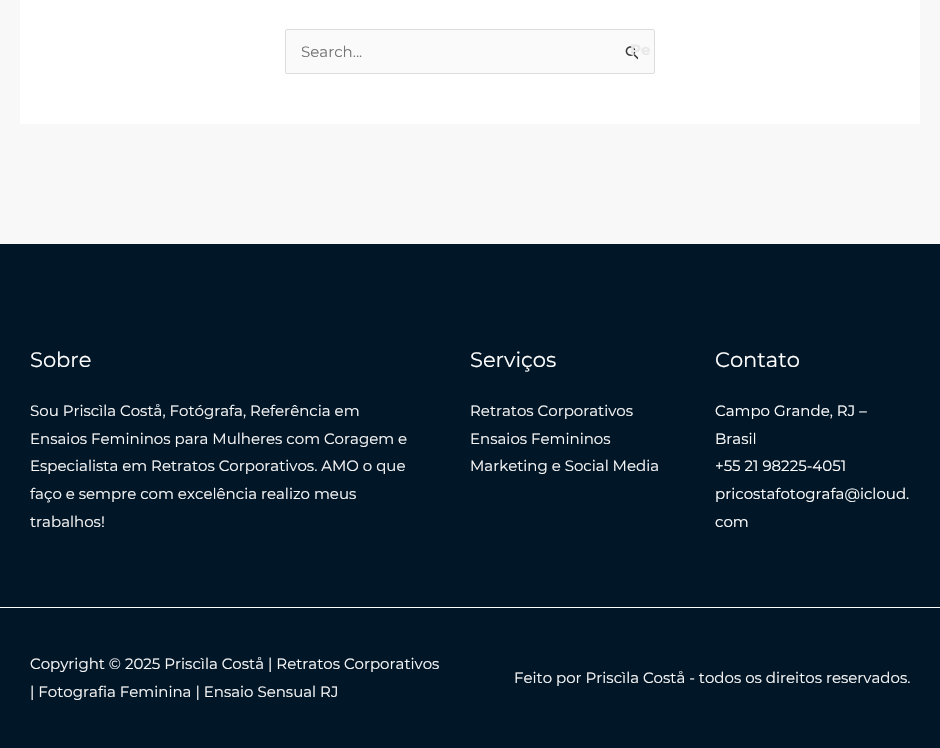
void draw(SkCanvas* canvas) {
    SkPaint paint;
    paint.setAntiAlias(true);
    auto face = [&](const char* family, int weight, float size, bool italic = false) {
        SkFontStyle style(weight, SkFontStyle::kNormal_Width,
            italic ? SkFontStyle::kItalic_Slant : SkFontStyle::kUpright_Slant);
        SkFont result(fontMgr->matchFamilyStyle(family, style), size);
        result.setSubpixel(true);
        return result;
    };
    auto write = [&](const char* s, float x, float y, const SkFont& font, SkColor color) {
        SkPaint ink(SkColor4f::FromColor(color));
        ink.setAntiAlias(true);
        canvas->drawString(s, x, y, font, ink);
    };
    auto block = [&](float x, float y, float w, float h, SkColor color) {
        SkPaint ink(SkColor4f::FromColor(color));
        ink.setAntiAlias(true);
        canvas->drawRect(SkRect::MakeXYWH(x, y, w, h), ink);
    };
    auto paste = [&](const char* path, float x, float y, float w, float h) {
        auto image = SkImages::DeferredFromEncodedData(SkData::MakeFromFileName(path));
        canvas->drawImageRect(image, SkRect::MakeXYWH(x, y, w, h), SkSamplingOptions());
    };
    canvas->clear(SkColorSetRGB(249, 248, 248));
    block(20, 0, 900, 124, SK_ColorWHITE);
    paint.setColor(SkColorSetRGB(250, 250, 250));
    canvas->drawRoundRect(SkRect::MakeXYWH(285.5f, 29.5f, 369, 44), 1.5f, 1.5f, paint);
    paint.setStyle(SkPaint::kStroke_Style);
    paint.setStrokeWidth(1);
    paint.setColor(SkColorSetRGB(221, 221, 221));
    canvas->drawRoundRect(SkRect::MakeXYWH(285.5f, 29.5f, 369, 44), 1.5f, 1.5f, paint);
    auto kFont1 = face("Montserrat", 400, 15);
    write("Search...", 301, 57, kFont1, SkColorSetRGB(117, 117, 117));
    paste("pic1.png", 625, 46, 13, 14);
    auto kFont2 = face("Montserrat", 700, 15);
    write("Pe", 630, 55, kFont2, SkColorSetRGB(233, 233, 233));
    block(0, 244, 940, 504, SkColorSetRGB(1, 22, 39));
    auto kFont3 = face("Montserrat", 400, 21);
    write("Sobre", 30, 367, kFont3, SK_ColorWHITE);
    write("Sou Priscìla Costå, Fotógrafa, Referência em", 30, 416, kFont1, SkColorSetRGB(249, 248, 248));
    write("Ensaios Femininos para Mulheres com Coragem e", 30, 444, kFont1, SkColorSetRGB(249, 248, 248));
    write("Especialista em Retratos Corporativos. AMO o que", 30, 471, kFont1, SkColorSetRGB(249, 248, 248));
    write("faço e sempre com excelência realizo meus", 30, 499, kFont1, SkColorSetRGB(249, 248, 248));
    write("trabalhos!", 30, 527, kFont1, SkColorSetRGB(249, 248, 248));
    write("Serviços", 470, 367, kFont3, SK_ColorWHITE);
    write("Retratos Corporativos", 470, 416, kFont1, SkColorSetRGB(249, 248, 248));
    write("Ensaios Femininos", 470, 444, kFont1, SkColorSetRGB(249, 248, 248));
    write("Marketing e Social Media", 470, 471, kFont1, SkColorSetRGB(249, 248, 248));
    write("Contato", 715, 367, kFont3, SK_ColorWHITE);
    write("Campo Grande, RJ –", 715, 416, kFont1, SK_ColorWHITE);
    write("Brasil", 715, 444, kFont1, SK_ColorWHITE);
    write("+55 21 98225-4051", 715, 471, kFont1, SK_ColorWHITE);
    write("pricostafotografa@icloud.", 715, 499, kFont1, SK_ColorWHITE);
    write("com", 715, 527, kFont1, SK_ColorWHITE);
    block(0, 607, 940, 1, SK_ColorWHITE);
    write("Copyright © 2025 Priscìla Costå | Retratos Corporativos", 30, 669, kFont1, SkColorSetRGB(249, 248, 248));
    write("| Fotografia Feminina | Ensaio Sensual RJ", 30, 697, kFont1, SkColorSetRGB(249, 248, 248));
    write("Feito por Priscìla Costå - todos os direitos reservados.", 514, 683, kFont1, SkColorSetRGB(249, 248, 248));
}
